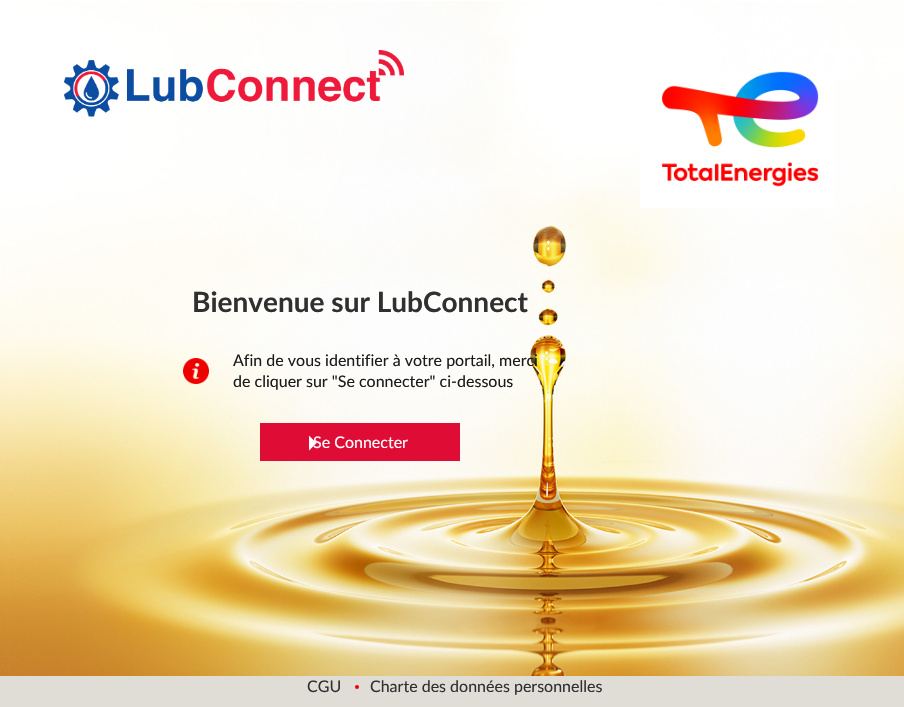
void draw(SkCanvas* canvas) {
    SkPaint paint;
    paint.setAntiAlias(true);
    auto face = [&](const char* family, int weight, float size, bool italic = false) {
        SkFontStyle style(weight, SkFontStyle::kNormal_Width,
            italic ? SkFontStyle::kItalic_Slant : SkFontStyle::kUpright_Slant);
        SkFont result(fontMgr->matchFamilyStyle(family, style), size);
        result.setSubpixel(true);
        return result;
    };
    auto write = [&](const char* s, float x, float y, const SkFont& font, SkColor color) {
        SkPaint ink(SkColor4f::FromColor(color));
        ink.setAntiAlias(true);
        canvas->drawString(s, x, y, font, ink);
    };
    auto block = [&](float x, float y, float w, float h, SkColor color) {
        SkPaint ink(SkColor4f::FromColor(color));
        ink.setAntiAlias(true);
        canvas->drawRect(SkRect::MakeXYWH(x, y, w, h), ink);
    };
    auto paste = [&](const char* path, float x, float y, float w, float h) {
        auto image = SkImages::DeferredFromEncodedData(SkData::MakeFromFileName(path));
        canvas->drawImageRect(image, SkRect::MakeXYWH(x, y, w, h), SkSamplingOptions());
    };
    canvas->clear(SK_ColorWHITE);
    paste("pic1.png", 0, 1, 904, 675);
    paste("pic2.png", 64, 50, 340, 67);
    paste("pic3.png", 640, 71, 194, 137);
    auto kFont1 = face("Lato", 700, 28);
    write("Bienvenue sur LubConnect", 192, 312, kFont1, SkColorSetRGB(48, 48, 48));
    paste("pic4.png", 183, 358, 26, 26);
    auto kFont2 = face("Lato", 400, 16);
    write("Afin de vous identifier à votre portail, merci", 233, 366, kFont2, SkColorSetRGB(28, 26, 27));
    write("de cliquer sur \"Se connecter\" ci-dessous", 233, 387, kFont2, SkColorSetRGB(28, 26, 27));
    block(260, 423, 200, 38, SkColorSetRGB(223, 12, 54));
    paste("pic5.png", 309, 435, 8, 16);
    write("Se Connecter", 313, 448, kFont2, SK_ColorWHITE);
    block(0, 676, 904, 31, SkColorSetRGB(224, 221, 215));
    write("CGU", 307, 692, kFont2, SkColorSetRGB(48, 48, 48));
    paint.setColor(SkColorSetRGB(241, 2, 2));
    canvas->drawCircle(357, 687, 2, paint);
    write("Charte des données personnelles", 370, 692, kFont2, SkColorSetRGB(48, 48, 48));
}
